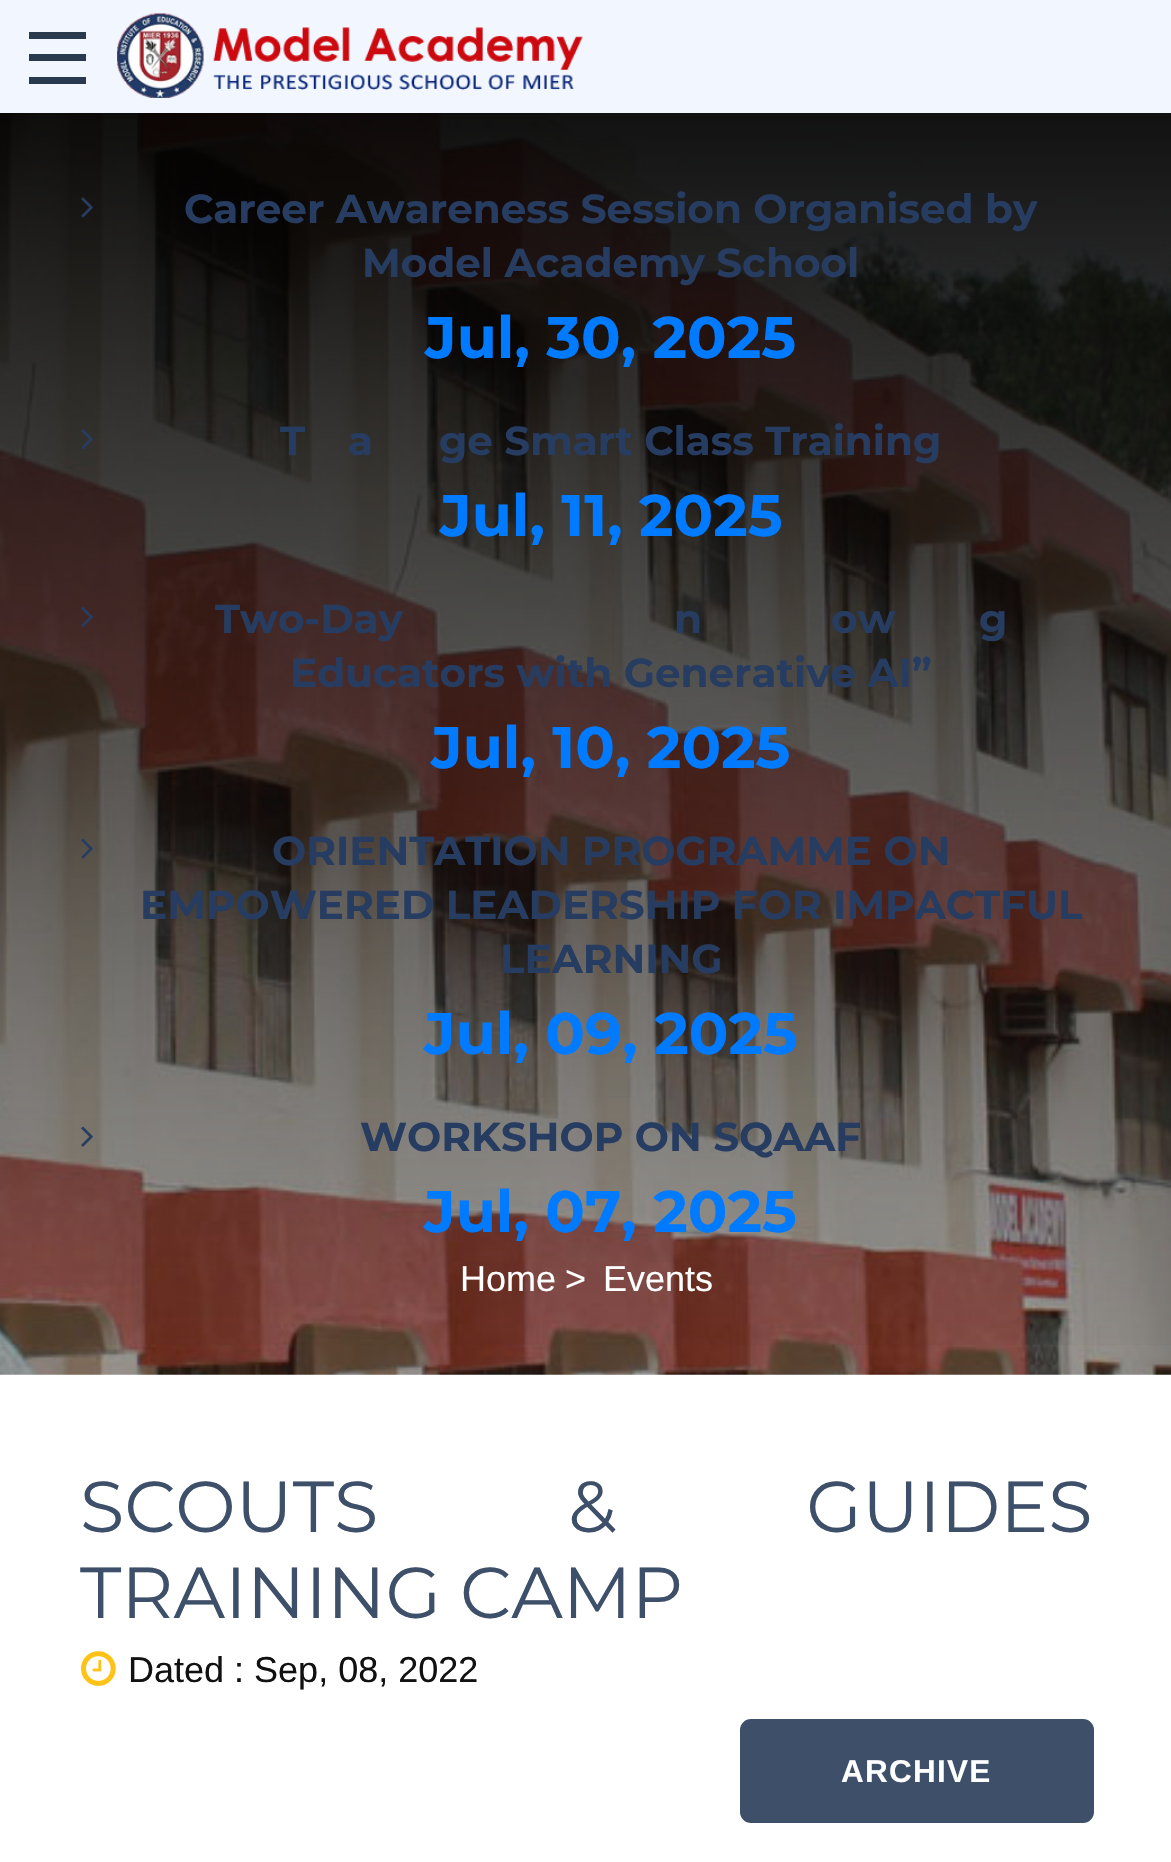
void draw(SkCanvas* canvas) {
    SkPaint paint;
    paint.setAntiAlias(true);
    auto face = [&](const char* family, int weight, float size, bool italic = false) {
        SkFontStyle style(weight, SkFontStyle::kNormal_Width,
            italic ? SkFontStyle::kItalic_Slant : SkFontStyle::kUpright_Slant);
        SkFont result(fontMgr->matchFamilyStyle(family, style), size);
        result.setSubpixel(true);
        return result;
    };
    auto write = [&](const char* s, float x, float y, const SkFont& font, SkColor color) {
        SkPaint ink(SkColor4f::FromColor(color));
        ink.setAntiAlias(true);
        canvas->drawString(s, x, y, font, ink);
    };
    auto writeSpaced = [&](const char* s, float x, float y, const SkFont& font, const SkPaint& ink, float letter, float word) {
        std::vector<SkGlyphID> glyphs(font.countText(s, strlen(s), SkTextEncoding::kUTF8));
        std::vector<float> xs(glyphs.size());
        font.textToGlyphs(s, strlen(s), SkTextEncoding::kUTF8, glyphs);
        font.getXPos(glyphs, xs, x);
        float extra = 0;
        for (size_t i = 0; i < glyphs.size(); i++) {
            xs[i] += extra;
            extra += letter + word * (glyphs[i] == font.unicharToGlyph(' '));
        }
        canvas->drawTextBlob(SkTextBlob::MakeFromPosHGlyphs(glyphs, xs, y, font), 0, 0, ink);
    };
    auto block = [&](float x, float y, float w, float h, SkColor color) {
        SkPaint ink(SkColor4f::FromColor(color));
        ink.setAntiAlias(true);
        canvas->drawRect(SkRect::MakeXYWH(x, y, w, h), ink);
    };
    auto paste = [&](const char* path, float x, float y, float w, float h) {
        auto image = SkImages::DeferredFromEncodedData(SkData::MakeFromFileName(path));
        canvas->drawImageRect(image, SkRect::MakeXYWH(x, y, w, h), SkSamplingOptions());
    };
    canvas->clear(SK_ColorWHITE);
    paste("pic2.png", 0, 113, 1171, 1262);
    {
        const SkColor colors[] = {SkColorSetARGB(230, 0, 0, 0), SkColorSetARGB(0, 0, 0, 0)};
        const float stops[] = {0, 1};
        const SkPoint ends[] = {{586, 112}, {586, 1375}};
        paint.setShader(SkGradientShader::MakeLinear(ends, colors, stops, 2, SkTileMode::kClamp));
        paint.setAlpha(255);
    }
    canvas->drawRect(SkRect::MakeXYWH(0, 113, 1171, 1232), paint);
    paint.setShader(nullptr);
    paint.setColor(SkColorSetARGB(38, 0, 0, 0));
    paint.setMaskFilter(SkMaskFilter::MakeBlur(kNormal_SkBlurStyle, 4.5f));
    canvas->drawRect(SkRect::MakeXYWH(0, 2, 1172, 113), paint);
    paint.setMaskFilter(nullptr);
    block(0, 0, 1171, 113, SkColorSetRGB(242, 246, 255));
    block(29, 54, 57, 7, SkColorSetRGB(42, 58, 78));
    block(29, 32, 57, 7, SkColorSetRGB(42, 58, 78));
    block(29, 77, 57, 7, SkColorSetRGB(42, 58, 78));
    paste("pic1.png", 117, 13, 466, 85);
    paste("pic3.png", 81, 197, 12, 21);
    auto kFont1 = face("Montserrat", 700, 40.5f);
    write("Career Awareness Session Organised by", 184, 223, kFont1, SkColorSetRGB(38, 60, 97));
    write("Model Academy School", 362, 277, kFont1, SkColorSetRGB(38, 60, 97));
    auto kFont2 = face("Montserrat", 700, 58.5f);
    write("Jul, 30, 2025", 425, 358, kFont2, SkColorSetRGB(0, 123, 255));
    paste("pic4.png", 81, 429, 12, 20);
    write("T", 280, 455, kFont1, SkColorSetRGB(38, 60, 97));
    write("a", 348, 455, kFont1, SkColorSetRGB(38, 60, 97));
    write("ge Smart Class Training", 439, 455, kFont1, SkColorSetRGB(38, 60, 97));
    write("Jul, 11, 2025", 440, 536, kFont2, SkColorSetRGB(0, 123, 255));
    paste("pic5.png", 81, 607, 12, 20);
    write("Two-Day", 215, 633, kFont1, SkColorSetRGB(38, 60, 97));
    write("n", 674, 633, kFont1, SkColorSetRGB(38, 60, 97));
    write("ow", 831, 633, kFont1, SkColorSetRGB(38, 60, 97));
    write("g", 979, 633, kFont1, SkColorSetRGB(38, 60, 97));
    write("Educators with Generative AI”", 290, 687, kFont1, SkColorSetRGB(38, 60, 97));
    write("Jul, 10, 2025", 431, 768, kFont2, SkColorSetRGB(0, 123, 255));
    paste("pic6.png", 81, 838, 12, 21);
    write("ORIENTATION PROGRAMME ON", 272, 865, kFont1, SkColorSetRGB(38, 60, 97));
    write("EMPOWERED LEADERSHIP FOR IMPACTFUL", 140, 919, kFont1, SkColorSetRGB(38, 60, 97));
    write("LEARNING", 500, 973, kFont1, SkColorSetRGB(38, 60, 97));
    write("Jul, 09, 2025", 424, 1054, kFont2, SkColorSetRGB(0, 123, 255));
    paste("pic7.png", 81, 1126, 12, 21);
    write("WORKSHOP ON SQAAF", 360, 1151, kFont1, SkColorSetRGB(38, 60, 97));
    write("Jul, 07, 2025", 424, 1232, kFont2, SkColorSetRGB(0, 123, 255));
    auto kFont3 = face("Liberation Sans", 400, 36);
    write("Home", 460, 1291, kFont3, SK_ColorWHITE);
    write(">", 565, 1291, kFont3, SK_ColorWHITE);
    write("Events", 603, 1291, kFont3, SK_ColorWHITE);
    auto kFont4 = face("Montserrat", 400, 72);
    paint.setColor(SkColorSetRGB(61, 79, 105));
    writeSpaced("SCOUTS & GUIDES", 80, 1532, kFont4, paint, 0, 171);
    write("TRAINING CAMP", 80, 1618, kFont4, SkColorSetRGB(61, 79, 105));
    paste("pic8.png", 81, 1651, 35, 35);
    write("Dated : Sep, 08, 2022", 128, 1682, kFont3, SkColorSetRGB(17, 17, 17));
    canvas->drawRoundRect(SkRect::MakeXYWH(743.5f, 1722.5f, 347, 97), 7.5f, 7.5f, paint);
    paint.setStyle(SkPaint::kStroke_Style);
    paint.setStrokeWidth(7);
    canvas->drawRoundRect(SkRect::MakeXYWH(743.5f, 1722.5f, 347, 97), 7.5f, 7.5f, paint);
    auto kFont5 = face("Liberation Sans", 700, 31.5f);
    paint.setStyle(SkPaint::kFill_Style);
    paint.setColor(SK_ColorWHITE);
    writeSpaced("ARCHIVE", 841, 1782, kFont5, paint, 1.25f, 0);
}
